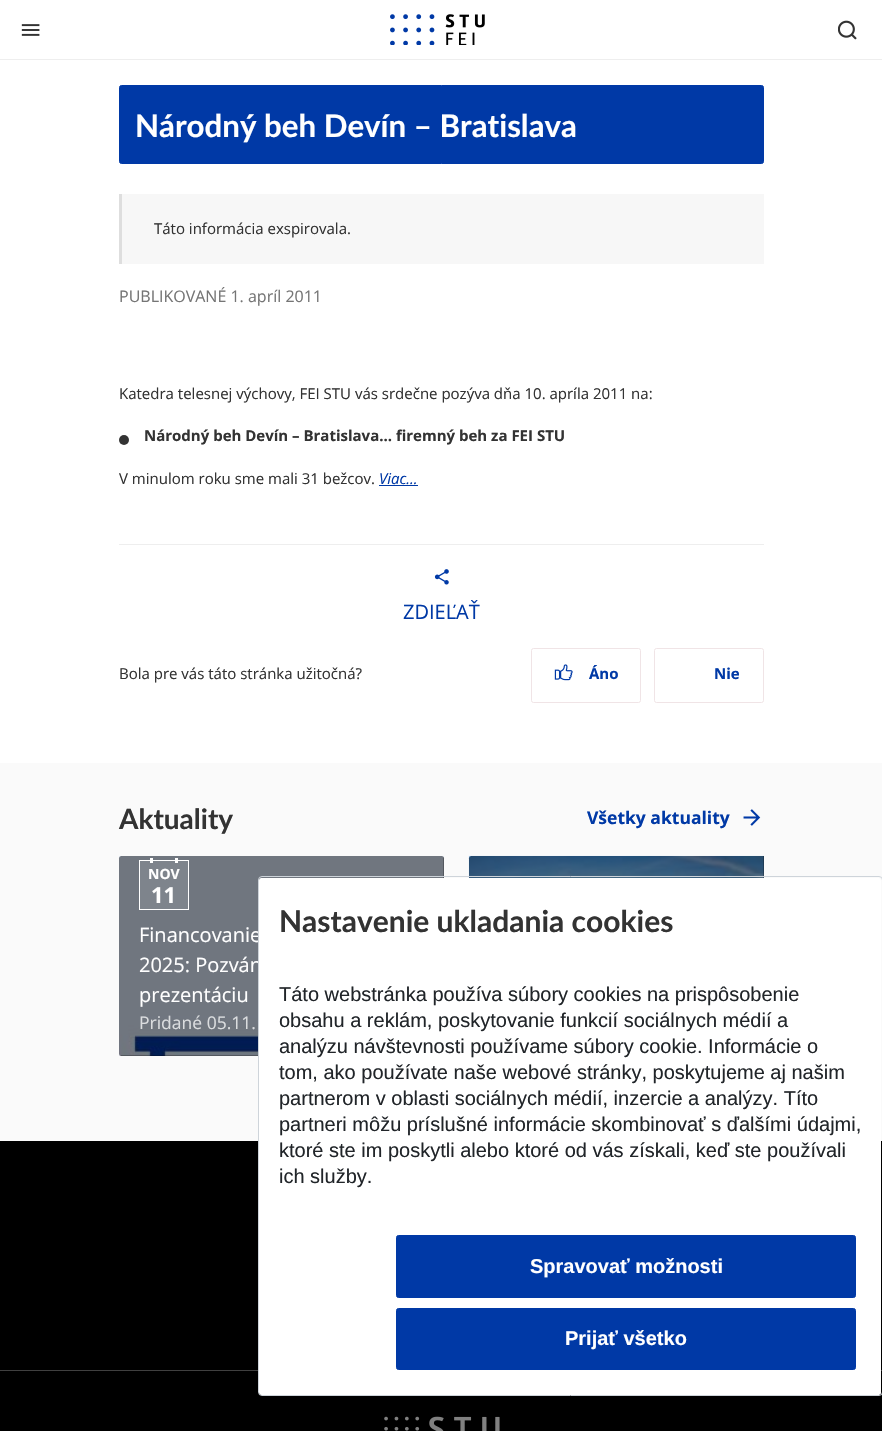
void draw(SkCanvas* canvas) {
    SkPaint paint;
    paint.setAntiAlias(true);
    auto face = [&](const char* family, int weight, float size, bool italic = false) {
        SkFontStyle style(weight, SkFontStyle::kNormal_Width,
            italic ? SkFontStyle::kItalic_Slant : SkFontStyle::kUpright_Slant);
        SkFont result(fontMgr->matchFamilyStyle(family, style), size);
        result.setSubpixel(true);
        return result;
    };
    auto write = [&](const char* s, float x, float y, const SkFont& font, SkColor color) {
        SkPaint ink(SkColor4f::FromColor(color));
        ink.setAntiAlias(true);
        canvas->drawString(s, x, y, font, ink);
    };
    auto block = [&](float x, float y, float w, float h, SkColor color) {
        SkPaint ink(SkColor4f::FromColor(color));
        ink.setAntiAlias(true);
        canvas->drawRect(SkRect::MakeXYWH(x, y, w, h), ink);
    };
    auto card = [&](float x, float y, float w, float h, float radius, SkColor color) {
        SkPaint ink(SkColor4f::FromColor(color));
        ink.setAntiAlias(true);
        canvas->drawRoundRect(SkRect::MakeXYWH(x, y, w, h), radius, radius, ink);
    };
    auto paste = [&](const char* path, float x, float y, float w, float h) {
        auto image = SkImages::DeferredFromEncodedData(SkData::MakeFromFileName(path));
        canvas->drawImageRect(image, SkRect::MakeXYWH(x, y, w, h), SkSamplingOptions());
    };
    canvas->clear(SkColorSetRGB(250, 250, 250));
    block(0, 0, 882, 59, SK_ColorWHITE);
    block(0, 59, 882, 1, SkColorSetRGB(238, 238, 238));
    paste("pic1.png", 21, 24, 19, 12);
    paste("pic2.png", 390, 14, 95, 31);
    paste("pic3.png", 838, 20, 19, 20);
    block(0, 60, 882, 703, SK_ColorWHITE);
    paint.setColor(SkColorSetRGB(0, 57, 166));
    canvas->drawRoundRect(SkRect::MakeXYWH(119.5f, 85.5f, 644, 78), 2, 2, paint);
    paint.setStyle(SkPaint::kStroke_Style);
    paint.setStrokeWidth(1);
    canvas->drawRoundRect(SkRect::MakeXYWH(119.5f, 85.5f, 644, 78), 2, 2, paint);
    auto kFont1 = face("Lato", 700, 31.25f);
    write("Národný beh Devín – Bratislava", 135, 137, kFont1, SK_ColorWHITE);
    block(122, 194, 642, 70, SkColorSetRGB(247, 247, 247));
    block(119, 194, 3, 70, SkColorSetRGB(222, 222, 222));
    auto kFont2 = face("Open Sans", 400, 15);
    write("Táto informácia exspirovala.", 154, 234, kFont2, SkColorSetRGB(51, 51, 51));
    auto kFont3 = face("Open Sans", 400, 16);
    write("PUBLIKOVANÉ 1. apríl 2011", 119, 302, kFont3, SkColorSetRGB(117, 117, 117));
    write("Katedra telesnej výchovy, FEI STU vás srdečne pozýva dňa 10. apríla 2011 na:", 119, 399, kFont2, SkColorSetRGB(51, 51, 51));
    paint.setStyle(SkPaint::kFill_Style);
    paint.setColor(SkColorSetRGB(51, 51, 51));
    canvas->drawCircle(124, 440, 5, paint);
    auto kFont4 = face("Open Sans", 700, 15);
    write("Národný beh Devín – Bratislava... firemný beh za FEI STU", 144, 441, kFont4, SkColorSetRGB(51, 51, 51));
    write("V minulom roku sme mali 31 bežcov.", 119, 484, kFont2, SkColorSetRGB(51, 51, 51));
    auto kFont5 = face("Open Sans", 400, 15, true);
    write("Viac...", 379, 484, kFont5, SkColorSetRGB(0, 57, 166));
    block(379, 485, 39, 1, SkColorSetRGB(0, 57, 166));
    block(119, 544, 645, 1, SkColorSetRGB(238, 238, 238));
    paste("pic4.png", 434, 569, 15, 16);
    auto kFont6 = face("Open Sans", 400, 20);
    write("ZDIEĽAŤ", 403, 619, kFont6, SkColorSetRGB(0, 57, 166));
    write("Bola pre vás táto stránka užitočná?", 119, 679, kFont2, SkColorSetRGB(51, 51, 51));
    paint.setStyle(SkPaint::kStroke_Style);
    paint.setColor(SkColorSetRGB(240, 228, 230));
    canvas->drawRoundRect(SkRect::MakeXYWH(531.5f, 648.5f, 109, 54), 2, 2, paint);
    paste("pic5.png", 554, 664, 19, 17);
    write("Áno", 589, 679, kFont4, SkColorSetRGB(0, 57, 166));
    canvas->drawRoundRect(SkRect::MakeXYWH(654.5f, 648.5f, 109, 54), 2, 2, paint);
    write("Nie", 714, 679, kFont4, SkColorSetRGB(0, 57, 166));
    auto kFont7 = face("Lato", 700, 28);
    write("Aktuality", 119, 829, kFont7, SkColorSetRGB(51, 51, 51));
    auto kFont8 = face("Open Sans", 700, 17.5f);
    write("Všetky aktuality", 587, 824, kFont8, SkColorSetRGB(0, 57, 166));
    paste("pic6.png", 743, 809, 18, 17);
    card(119, 856, 325, 200, 2.5f, SK_ColorBLACK);
    paste("pic7.png", 119, 856, 325, 200);
    paint.setStyle(SkPaint::kFill_Style);
    paint.setColor(SkColorSetRGB(126, 132, 140));
    canvas->drawRect(SkRect::MakeXYWH(139.5f, 860.5f, 49, 49), paint);
    paint.setStyle(SkPaint::kStroke_Style);
    paint.setColor(SK_ColorWHITE);
    canvas->drawRect(SkRect::MakeXYWH(139.5f, 860.5f, 49, 49), paint);
    block(150, 858, 3, 5, SK_ColorWHITE);
    block(175, 858, 3, 5, SK_ColorWHITE);
    auto kFont9 = face("Open Sans", 700, 14);
    write("NOV", 148, 879, kFont9, SK_ColorWHITE);
    auto kFont10 = face("Open Sans", 700, 22);
    write("11", 151, 903, kFont10, SK_ColorWHITE);
    write("Financovanie", 139, 942, kFont6, SK_ColorWHITE);
    write("2025: Pozván", 139, 972, kFont6, SK_ColorWHITE);
    write("prezentáciu", 139, 1002, kFont6, SK_ColorWHITE);
    auto kFont11 = face("Open Sans", 400, 17.5f);
    write("Pridané 05.11.", 139, 1029, kFont11, SkColorSetRGB(219, 221, 223));
    paint.setStyle(SkPaint::kFill_Style);
    paint.setColor(SK_ColorBLACK);
    canvas->drawPath(SkPathBuilder().moveTo(471.5f, 856).lineTo(764, 856).lineTo(764, 1056).lineTo(471.5f, 1056).cubicTo(470, 1056, 469, 1055, 469, 1053.5f).lineTo(469, 858.5f).cubicTo(469, 857, 470, 856, 471.5f, 856).close().detach(), paint);
    paste("pic8.png", 468, 855, 296, 23);
    block(0, 1141, 882, 290, SK_ColorBLACK);
    block(0, 1370, 882, 1, SkColorSetRGB(64, 64, 64));
    card(259, 878, 622, 517, 2.5f, SK_ColorWHITE);
    paint.setStyle(SkPaint::kStroke_Style);
    paint.setColor(SkColorSetRGB(206, 212, 218));
    canvas->drawRoundRect(SkRect::MakeXYWH(258.5f, 876.5f, 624, 519), 3.5f, 3.5f, paint);
    auto kFont12 = face("Lato", 700, 30);
    write("Nastavenie ukladania cookies", 279, 932, kFont12, SkColorSetRGB(51, 51, 51));
    auto kFont13 = face("Liberation Sans", 400, 20);
    write("Táto webstránka používa súbory cookies na prispôsobenie", 279, 1001, kFont13, SkColorSetRGB(33, 37, 41));
    write("obsahu a reklám, poskytovanie funkcií sociálnych médií a", 279, 1027, kFont13, SkColorSetRGB(33, 37, 41));
    write("analýzu návštevnosti používame súbory cookie. Informácie o", 279, 1053, kFont13, SkColorSetRGB(33, 37, 41));
    write("tom, ako používate naše webové stránky, poskytujeme aj našim", 279, 1079, kFont13, SkColorSetRGB(33, 37, 41));
    write("partnerom v oblasti sociálnych médií, inzercie a analýzy. Títo", 279, 1105, kFont13, SkColorSetRGB(33, 37, 41));
    write("partneri môžu príslušné informácie skombinovať s ďalšími údajmi,", 279, 1131, kFont13, SkColorSetRGB(33, 37, 41));
    write("ktoré ste im poskytli alebo ktoré od vás získali, keď ste používali", 279, 1157, kFont13, SkColorSetRGB(33, 37, 41));
    write("ich služby.", 279, 1183, kFont13, SkColorSetRGB(33, 37, 41));
    paint.setStyle(SkPaint::kFill_Style);
    paint.setColor(SkColorSetRGB(0, 57, 166));
    canvas->drawRoundRect(SkRect::MakeXYWH(396.5f, 1235.5f, 459, 62), 2, 2, paint);
    paint.setStyle(SkPaint::kStroke_Style);
    canvas->drawRoundRect(SkRect::MakeXYWH(396.5f, 1235.5f, 459, 62), 2, 2, paint);
    auto kFont14 = face("Liberation Sans", 700, 20);
    write("Spravovať možnosti", 530, 1273, kFont14, SK_ColorWHITE);
    paint.setStyle(SkPaint::kFill_Style);
    canvas->drawRoundRect(SkRect::MakeXYWH(396.5f, 1308.5f, 459, 61), 2, 2, paint);
    paint.setStyle(SkPaint::kStroke_Style);
    canvas->drawRoundRect(SkRect::MakeXYWH(396.5f, 1308.5f, 459, 61), 2, 2, paint);
    write("Prijať všetko", 565, 1345, kFont14, SK_ColorWHITE);
    paste("pic9.png", 384, 1416, 116, 15);
}
